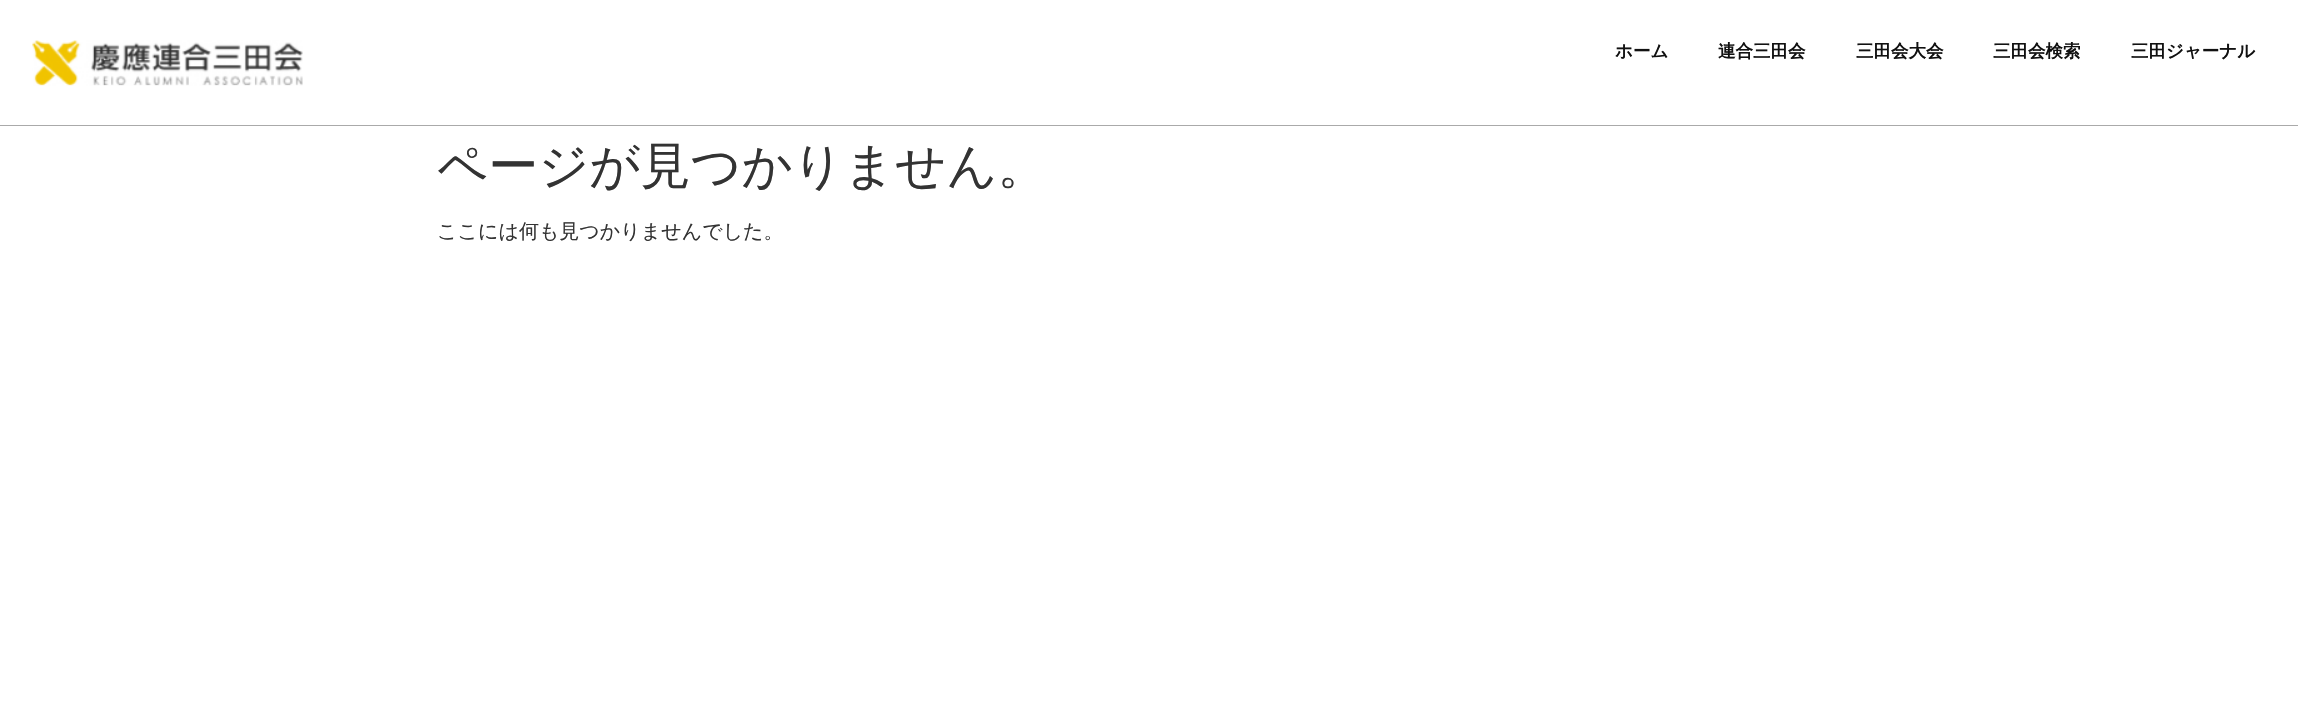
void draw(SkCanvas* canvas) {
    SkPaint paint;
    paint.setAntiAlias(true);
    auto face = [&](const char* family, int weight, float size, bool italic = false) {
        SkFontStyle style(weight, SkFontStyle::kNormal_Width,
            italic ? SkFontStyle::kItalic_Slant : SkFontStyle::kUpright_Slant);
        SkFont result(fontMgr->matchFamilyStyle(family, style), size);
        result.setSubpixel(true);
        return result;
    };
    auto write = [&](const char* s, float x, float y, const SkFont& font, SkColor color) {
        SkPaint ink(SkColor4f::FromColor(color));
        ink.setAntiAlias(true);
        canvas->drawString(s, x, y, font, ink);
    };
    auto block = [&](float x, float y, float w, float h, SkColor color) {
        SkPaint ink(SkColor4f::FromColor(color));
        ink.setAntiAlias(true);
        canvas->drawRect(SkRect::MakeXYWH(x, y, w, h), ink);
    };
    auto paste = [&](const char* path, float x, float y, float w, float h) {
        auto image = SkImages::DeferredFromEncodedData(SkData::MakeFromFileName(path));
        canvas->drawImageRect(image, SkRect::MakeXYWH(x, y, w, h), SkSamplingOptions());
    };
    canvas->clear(SK_ColorWHITE);
    block(0, 125, 2298, 1, SkColorSetRGB(170, 170, 170));
    paste("pic1.png", 32, 40, 271, 46);
    auto kFont1 = face("WenQuanYi Zen Hei", 700, 17.5f);
    write("ホーム", 1615, 57, kFont1, SkColorSetRGB(17, 17, 17));
    write("連合三田会", 1718, 57, kFont1, SkColorSetRGB(17, 17, 17));
    write("三田会大会", 1856, 57, kFont1, SkColorSetRGB(17, 17, 17));
    write("三田会検索", 1993, 57, kFont1, SkColorSetRGB(17, 17, 17));
    write("三田ジャーナル", 2131, 57, kFont1, SkColorSetRGB(17, 17, 17));
    auto kFont2 = face("WenQuanYi Zen Hei", 500, 50);
    write("ページが見つかりません。", 437, 183, kFont2, SkColorSetRGB(51, 51, 51));
    auto kFont3 = face("WenQuanYi Zen Hei", 500, 20);
    write("ここには何も見つかりませんでした。", 437, 238, kFont3, SkColorSetRGB(51, 51, 51));
}
